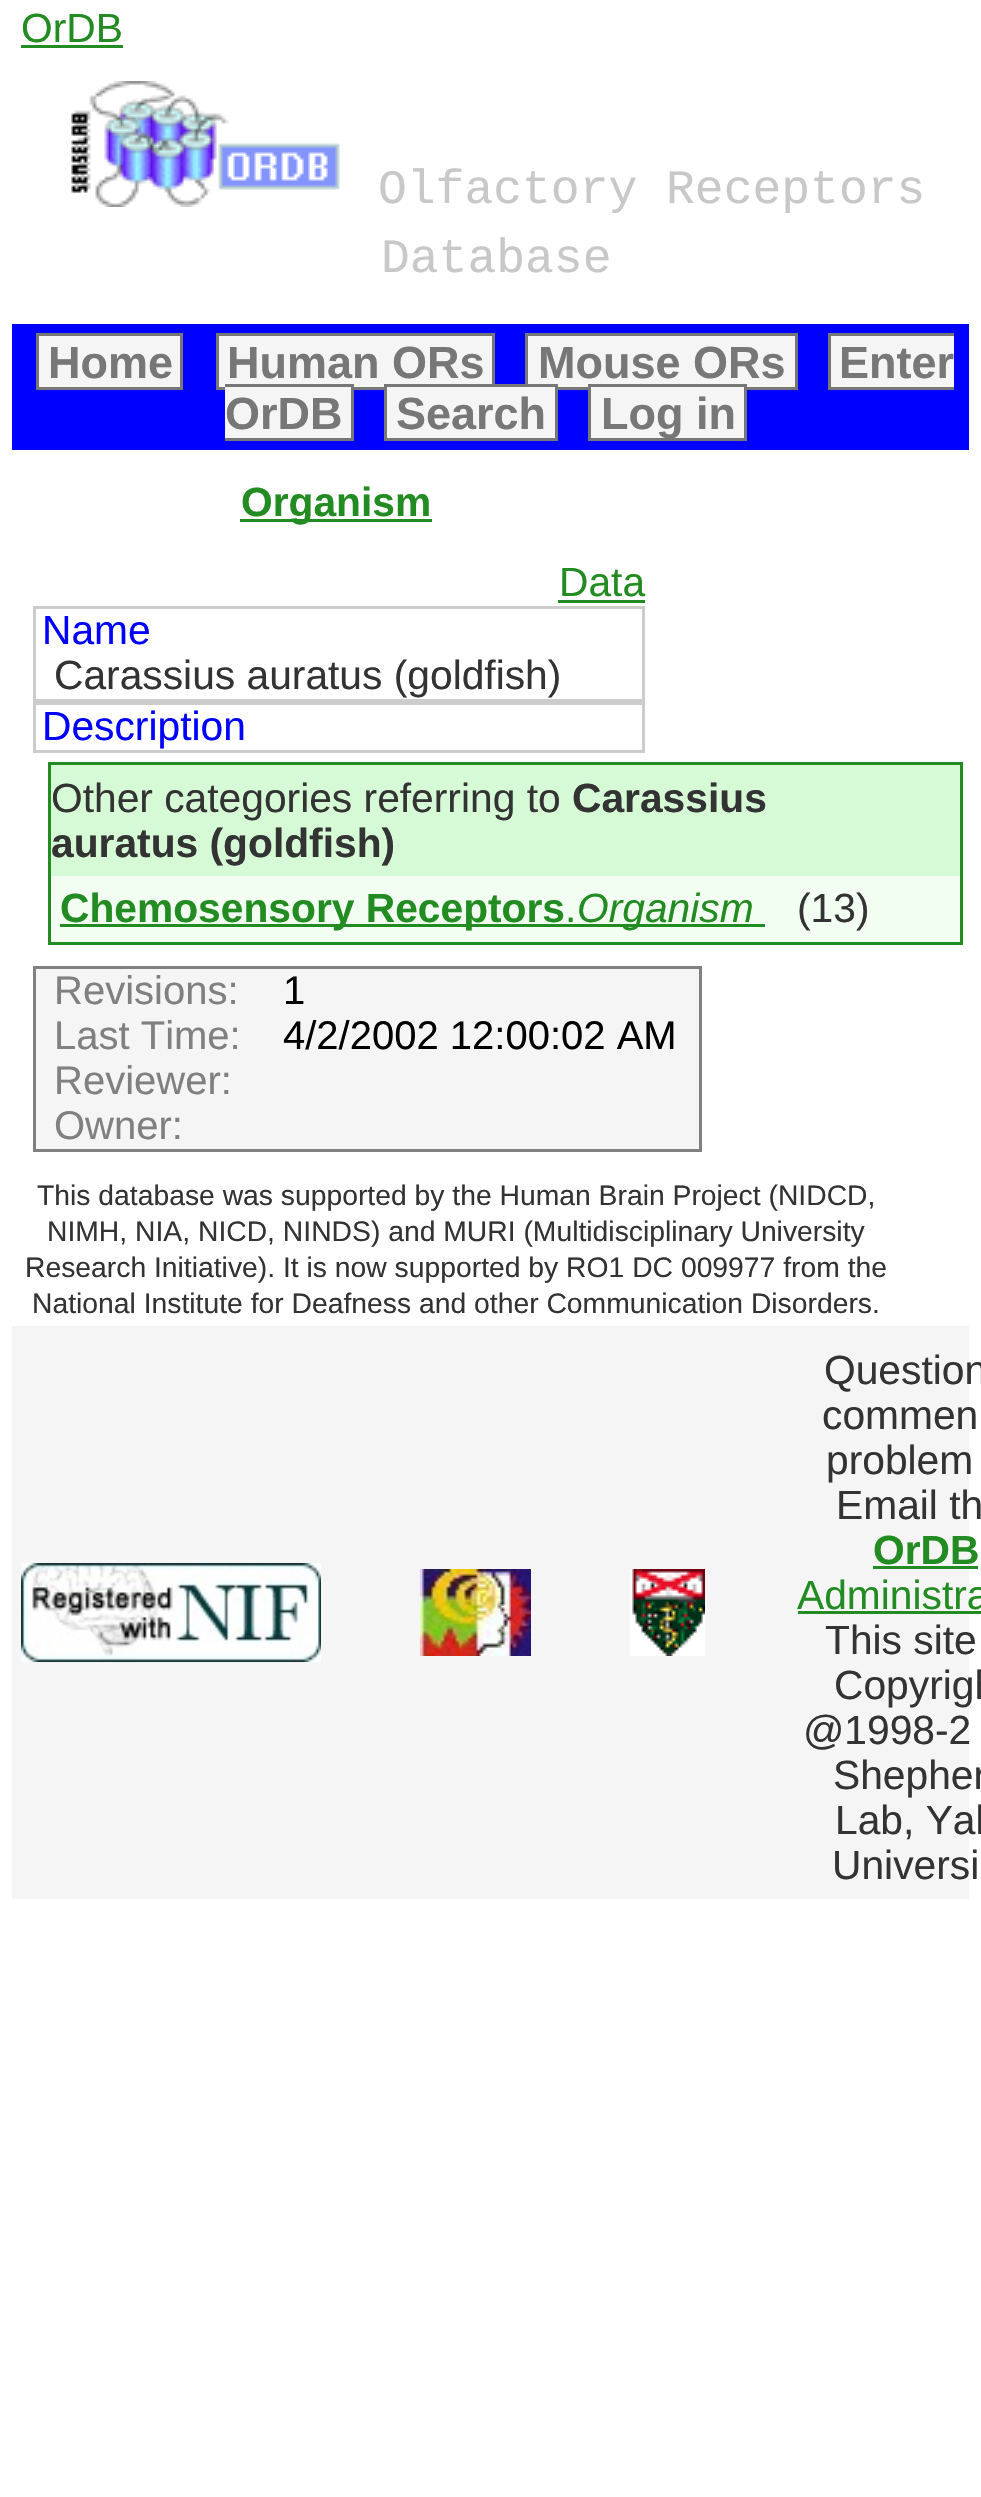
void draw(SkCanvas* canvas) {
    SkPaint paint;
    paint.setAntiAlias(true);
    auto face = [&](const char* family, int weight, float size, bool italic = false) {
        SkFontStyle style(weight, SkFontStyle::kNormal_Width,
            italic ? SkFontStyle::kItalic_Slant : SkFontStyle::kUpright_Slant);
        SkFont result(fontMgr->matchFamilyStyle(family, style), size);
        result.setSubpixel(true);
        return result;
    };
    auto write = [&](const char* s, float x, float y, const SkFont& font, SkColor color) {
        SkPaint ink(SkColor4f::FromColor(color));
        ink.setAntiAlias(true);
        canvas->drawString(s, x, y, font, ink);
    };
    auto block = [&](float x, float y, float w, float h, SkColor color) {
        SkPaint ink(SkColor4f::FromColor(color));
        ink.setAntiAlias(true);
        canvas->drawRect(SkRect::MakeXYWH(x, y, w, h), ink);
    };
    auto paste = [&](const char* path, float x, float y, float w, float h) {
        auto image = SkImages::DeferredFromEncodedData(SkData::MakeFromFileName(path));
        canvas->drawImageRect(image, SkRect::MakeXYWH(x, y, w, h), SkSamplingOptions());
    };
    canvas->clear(SK_ColorWHITE);
    auto kFont1 = face("Liberation Sans", 400, 40.75f);
    write("OrDB", 21, 42, kFont1, SkColorSetRGB(34, 139, 34));
    block(21, 45, 102, 3, SkColorSetRGB(34, 139, 34));
    paste("pic1.png", 71, 81, 269, 126);
    auto kFont2 = face("Liberation Mono", 400, 48);
    write("Olfactory Receptors", 378, 203, kFont2, SkColorSetRGB(200, 200, 200));
    write("Database", 381, 272, kFont2, SkColorSetRGB(200, 200, 200));
    block(12, 324, 957, 126, SkColorSetRGB(0, 0, 255));
    paint.setColor(SkColorSetRGB(245, 245, 245));
    canvas->drawRect(SkRect::MakeXYWH(37.5f, 334.5f, 144, 54), paint);
    paint.setStyle(SkPaint::kStroke_Style);
    paint.setStrokeWidth(3);
    paint.setColor(SkColorSetRGB(119, 119, 119));
    canvas->drawRect(SkRect::MakeXYWH(37.5f, 334.5f, 144, 54), paint);
    auto kFont3 = face("Liberation Sans", 700, 45);
    write("Home", 48, 378, kFont3, SkColorSetRGB(119, 119, 119));
    paint.setStyle(SkPaint::kFill_Style);
    paint.setColor(SkColorSetRGB(245, 245, 245));
    canvas->drawRect(SkRect::MakeXYWH(217.5f, 334.5f, 276, 54), paint);
    paint.setStyle(SkPaint::kStroke_Style);
    paint.setColor(SkColorSetRGB(119, 119, 119));
    canvas->drawRect(SkRect::MakeXYWH(217.5f, 334.5f, 276, 54), paint);
    write("Human ORs", 227, 378, kFont3, SkColorSetRGB(119, 119, 119));
    paint.setStyle(SkPaint::kFill_Style);
    paint.setColor(SkColorSetRGB(245, 245, 245));
    canvas->drawRect(SkRect::MakeXYWH(526.5f, 334.5f, 270, 54), paint);
    paint.setStyle(SkPaint::kStroke_Style);
    paint.setColor(SkColorSetRGB(119, 119, 119));
    canvas->drawRect(SkRect::MakeXYWH(526.5f, 334.5f, 270, 54), paint);
    write("Mouse ORs", 538, 378, kFont3, SkColorSetRGB(119, 119, 119));
    block(831, 336, 123, 51, SkColorSetRGB(245, 245, 245));
    write("Enter", 839, 378, kFont3, SkColorSetRGB(119, 119, 119));
    block(828, 333, 126, 3, SkColorSetRGB(119, 119, 119));
    block(828, 387, 126, 3, SkColorSetRGB(119, 119, 119));
    block(828, 333, 3, 57, SkColorSetRGB(119, 119, 119));
    block(225, 387, 126, 51, SkColorSetRGB(245, 245, 245));
    write("OrDB", 225, 429, kFont3, SkColorSetRGB(119, 119, 119));
    block(225, 384, 129, 3, SkColorSetRGB(119, 119, 119));
    block(351, 384, 3, 57, SkColorSetRGB(119, 119, 119));
    block(225, 438, 129, 3, SkColorSetRGB(119, 119, 119));
    paint.setStyle(SkPaint::kFill_Style);
    paint.setColor(SkColorSetRGB(245, 245, 245));
    canvas->drawRect(SkRect::MakeXYWH(385.5f, 385.5f, 171, 54), paint);
    paint.setStyle(SkPaint::kStroke_Style);
    paint.setColor(SkColorSetRGB(119, 119, 119));
    canvas->drawRect(SkRect::MakeXYWH(385.5f, 385.5f, 171, 54), paint);
    write("Search", 396, 429, kFont3, SkColorSetRGB(119, 119, 119));
    paint.setStyle(SkPaint::kFill_Style);
    paint.setColor(SkColorSetRGB(245, 245, 245));
    canvas->drawRect(SkRect::MakeXYWH(589.5f, 385.5f, 156, 54), paint);
    paint.setStyle(SkPaint::kStroke_Style);
    paint.setColor(SkColorSetRGB(119, 119, 119));
    canvas->drawRect(SkRect::MakeXYWH(589.5f, 385.5f, 156, 54), paint);
    write("Log in", 601, 429, kFont3, SkColorSetRGB(119, 119, 119));
    block(240, 519, 192, 3, SkColorSetRGB(34, 139, 34));
    auto kFont4 = face("Liberation Sans", 700, 40.75f);
    write("Organism", 241, 516, kFont4, SkColorSetRGB(34, 139, 34));
    write("Data", 559, 596, kFont1, SkColorSetRGB(34, 139, 34));
    block(558, 600, 87, 3, SkColorSetRGB(34, 139, 34));
    paint.setColor(SkColorSetRGB(204, 204, 204));
    canvas->drawRect(SkRect::MakeXYWH(34.5f, 607.5f, 609, 93), paint);
    write("Name", 42, 644, kFont1, SkColorSetRGB(0, 0, 255));
    write("Carassius auratus (goldfish)", 54, 689, kFont1, SkColorSetRGB(51, 51, 51));
    canvas->drawRect(SkRect::MakeXYWH(34.5f, 703.5f, 609, 48), paint);
    write("Description", 42, 740, kFont1, SkColorSetRGB(0, 0, 255));
    block(51, 765, 909, 111, SkColorSetRGB(214, 250, 214));
    block(48, 762, 915, 3, SkColorSetRGB(34, 139, 34));
    block(960, 762, 3, 183, SkColorSetRGB(34, 139, 34));
    block(48, 942, 915, 3, SkColorSetRGB(34, 139, 34));
    block(48, 762, 3, 183, SkColorSetRGB(34, 139, 34));
    write("Other categories referring to", 51, 812, kFont1, SkColorSetRGB(51, 51, 51));
    write("Carassius", 572, 812, kFont4, SkColorSetRGB(51, 51, 51));
    write("auratus (goldfish)", 51, 857, kFont4, SkColorSetRGB(51, 51, 51));
    block(51, 876, 909, 66, SkColorSetRGB(241, 254, 241));
    block(60, 924, 705, 3, SkColorSetRGB(34, 139, 34));
    write("Chemosensory Receptors", 60, 922, kFont4, SkColorSetRGB(34, 139, 34));
    write(".", 565, 922, kFont1, SkColorSetRGB(34, 139, 34));
    auto kFont5 = face("Liberation Sans", 400, 40.75f, true);
    write("Organism", 577, 922, kFont5, SkColorSetRGB(34, 139, 34));
    write("(13)", 797, 922, kFont1, SkColorSetRGB(51, 51, 51));
    block(36, 969, 663, 180, SkColorSetRGB(245, 245, 245));
    block(33, 966, 669, 3, SkColorSetRGB(128, 128, 128));
    block(699, 966, 3, 186, SkColorSetRGB(128, 128, 128));
    block(33, 1149, 669, 3, SkColorSetRGB(128, 128, 128));
    block(33, 966, 3, 186, SkColorSetRGB(128, 128, 128));
    auto kFont6 = face("Liberation Sans", 400, 40);
    write("Revisions:", 54, 1004, kFont6, SkColorSetRGB(128, 128, 128));
    write("1", 283, 1004, kFont6, SK_ColorBLACK);
    write("Last Time:", 54, 1049, kFont6, SkColorSetRGB(128, 128, 128));
    write("4/2/2002 12:00:02 AM", 283, 1049, kFont6, SK_ColorBLACK);
    write("Reviewer:", 54, 1094, kFont6, SkColorSetRGB(128, 128, 128));
    write("Owner:", 54, 1139, kFont6, SkColorSetRGB(128, 128, 128));
    block(12, 1326, 957, 573, SkColorSetRGB(245, 245, 245));
    auto kFont7 = face("Liberation Sans", 400, 28.3f);
    write("This database was supported by the Human Brain Project (NIDCD,", 37, 1205, kFont7, SkColorSetRGB(51, 51, 51));
    write("NIMH, NIA, NICD, NINDS) and MURI (Multidisciplinary University", 47, 1241, kFont7, SkColorSetRGB(51, 51, 51));
    write("Research Initiative). It is now supported by RO1 DC 009977 from the", 25, 1277, kFont7, SkColorSetRGB(51, 51, 51));
    write("National Institute for Deafness and other Communication Disorders.", 32, 1313, kFont7, SkColorSetRGB(51, 51, 51));
    paste("pic2.png", 21, 1563, 300, 99);
    paste("pic3.png", 420, 1569, 111, 87);
    paste("pic4.png", 630, 1569, 75, 87);
    write("Question", 824, 1384, kFont1, SkColorSetRGB(51, 51, 51));
    write("commen", 822, 1429, kFont1, SkColorSetRGB(51, 51, 51));
    write("problem", 826, 1474, kFont1, SkColorSetRGB(51, 51, 51));
    write("Email th", 836, 1519, kFont1, SkColorSetRGB(51, 51, 51));
    write("OrDB", 873, 1564, kFont4, SkColorSetRGB(34, 139, 34));
    block(873, 1566, 105, 3, SkColorSetRGB(34, 139, 34));
    write("Administra", 797, 1609, kFont1, SkColorSetRGB(34, 139, 34));
    block(798, 1611, 183, 3, SkColorSetRGB(34, 139, 34));
    write("This site", 825, 1654, kFont1, SkColorSetRGB(51, 51, 51));
    write("Copyrigh", 834, 1699, kFont1, SkColorSetRGB(51, 51, 51));
    write("@1998-2", 803, 1744, kFont1, SkColorSetRGB(51, 51, 51));
    write("Shepher", 833, 1789, kFont1, SkColorSetRGB(51, 51, 51));
    write("Lab, Yal", 835, 1834, kFont1, SkColorSetRGB(51, 51, 51));
    write("Universi", 832, 1879, kFont1, SkColorSetRGB(51, 51, 51));
}
